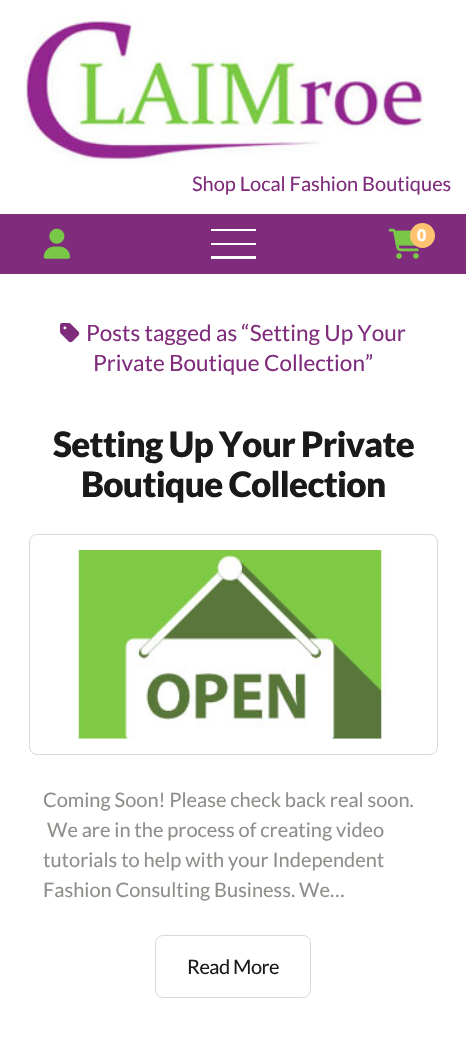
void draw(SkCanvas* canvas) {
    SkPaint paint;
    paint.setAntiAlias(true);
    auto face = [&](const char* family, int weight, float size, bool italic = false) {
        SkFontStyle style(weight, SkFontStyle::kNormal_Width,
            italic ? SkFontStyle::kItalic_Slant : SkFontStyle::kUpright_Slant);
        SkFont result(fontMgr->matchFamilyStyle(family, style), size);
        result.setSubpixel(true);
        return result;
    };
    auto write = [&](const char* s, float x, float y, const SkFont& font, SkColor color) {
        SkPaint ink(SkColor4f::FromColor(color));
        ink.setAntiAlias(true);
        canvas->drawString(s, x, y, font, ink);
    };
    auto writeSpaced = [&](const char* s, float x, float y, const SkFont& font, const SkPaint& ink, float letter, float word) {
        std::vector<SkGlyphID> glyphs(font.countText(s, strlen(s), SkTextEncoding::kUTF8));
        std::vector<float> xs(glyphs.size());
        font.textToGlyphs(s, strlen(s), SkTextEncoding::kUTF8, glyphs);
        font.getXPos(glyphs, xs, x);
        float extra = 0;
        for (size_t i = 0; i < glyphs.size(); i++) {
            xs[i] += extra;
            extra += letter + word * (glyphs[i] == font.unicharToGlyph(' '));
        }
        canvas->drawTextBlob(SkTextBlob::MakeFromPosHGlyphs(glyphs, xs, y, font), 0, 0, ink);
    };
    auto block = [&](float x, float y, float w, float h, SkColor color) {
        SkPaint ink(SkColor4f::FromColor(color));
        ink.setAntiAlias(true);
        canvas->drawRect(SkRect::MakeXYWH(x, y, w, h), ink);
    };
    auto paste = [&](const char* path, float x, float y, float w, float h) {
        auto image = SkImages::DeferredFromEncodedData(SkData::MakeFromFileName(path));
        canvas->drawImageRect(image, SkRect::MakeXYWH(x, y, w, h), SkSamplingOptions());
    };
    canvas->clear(SK_ColorWHITE);
    paste("pic1.png", 24, 15, 400, 149);
    auto kFont1 = face("Lato", 400, 20);
    write("Shop Local Fashion Boutiques", 192, 191, kFont1, SkColorSetRGB(128, 44, 125));
    block(0, 214, 466, 60, SkColorSetRGB(128, 44, 125));
    paste("pic2.png", 43, 228, 27, 31);
    block(211, 256, 45, 3, SK_ColorWHITE);
    block(211, 243, 45, 2, SK_ColorWHITE);
    block(211, 229, 45, 2, SK_ColorWHITE);
    paste("pic3.png", 388, 228, 31, 31);
    paint.setColor(SkColorSetRGB(255, 194, 112));
    canvas->drawCircle(422.5f, 235.5f, 12.5f, paint);
    auto kFont2 = face("Lato", 900, 16);
    write("0", 417, 241, kFont2, SK_ColorWHITE);
    paste("pic4.png", 60, 323, 20, 20);
    auto kFont3 = face("Lato", 400, 22.5f);
    write("Posts tagged as “Setting Up Your", 86, 341, kFont3, SkColorSetRGB(128, 44, 125));
    write("Private Boutique Collection”", 93, 371, kFont3, SkColorSetRGB(128, 44, 125));
    auto kFont4 = face("Lato", 900, 35);
    paint.setColor(SkColorSetRGB(26, 26, 26));
    writeSpaced("Setting Up Your Private", 53, 457, kFont4, paint, -0.7f, 0);
    writeSpaced("Boutique Collection", 81, 497, kFont4, paint, -0.7f, 0);
    paint.setStyle(SkPaint::kStroke_Style);
    paint.setStrokeWidth(1);
    paint.setColor(SkColorSetRGB(217, 217, 217));
    canvas->drawRoundRect(SkRect::MakeXYWH(29.5f, 534.5f, 408, 220), 7.5f, 7.5f, paint);
    paste("pic5.png", 78, 550, 308, 189);
    write("Coming Soon! Please check back real soon.", 43, 807, kFont1, SkColorSetRGB(141, 144, 138));
    write("We are in the process of creating video", 47, 837, kFont1, SkColorSetRGB(141, 144, 138));
    write("tutorials to help with your Independent", 43, 867, kFont1, SkColorSetRGB(141, 144, 138));
    write("Fashion Consulting Business. We…", 43, 897, kFont1, SkColorSetRGB(141, 144, 138));
    canvas->drawRoundRect(SkRect::MakeXYWH(155.5f, 935.5f, 155, 62), 7.5f, 7.5f, paint);
    paint.setStyle(SkPaint::kFill_Style);
    paint.setColor(SkColorSetRGB(26, 26, 26));
    writeSpaced("Read More", 187, 974, kFont1, paint, -0.5f, 0);
}
